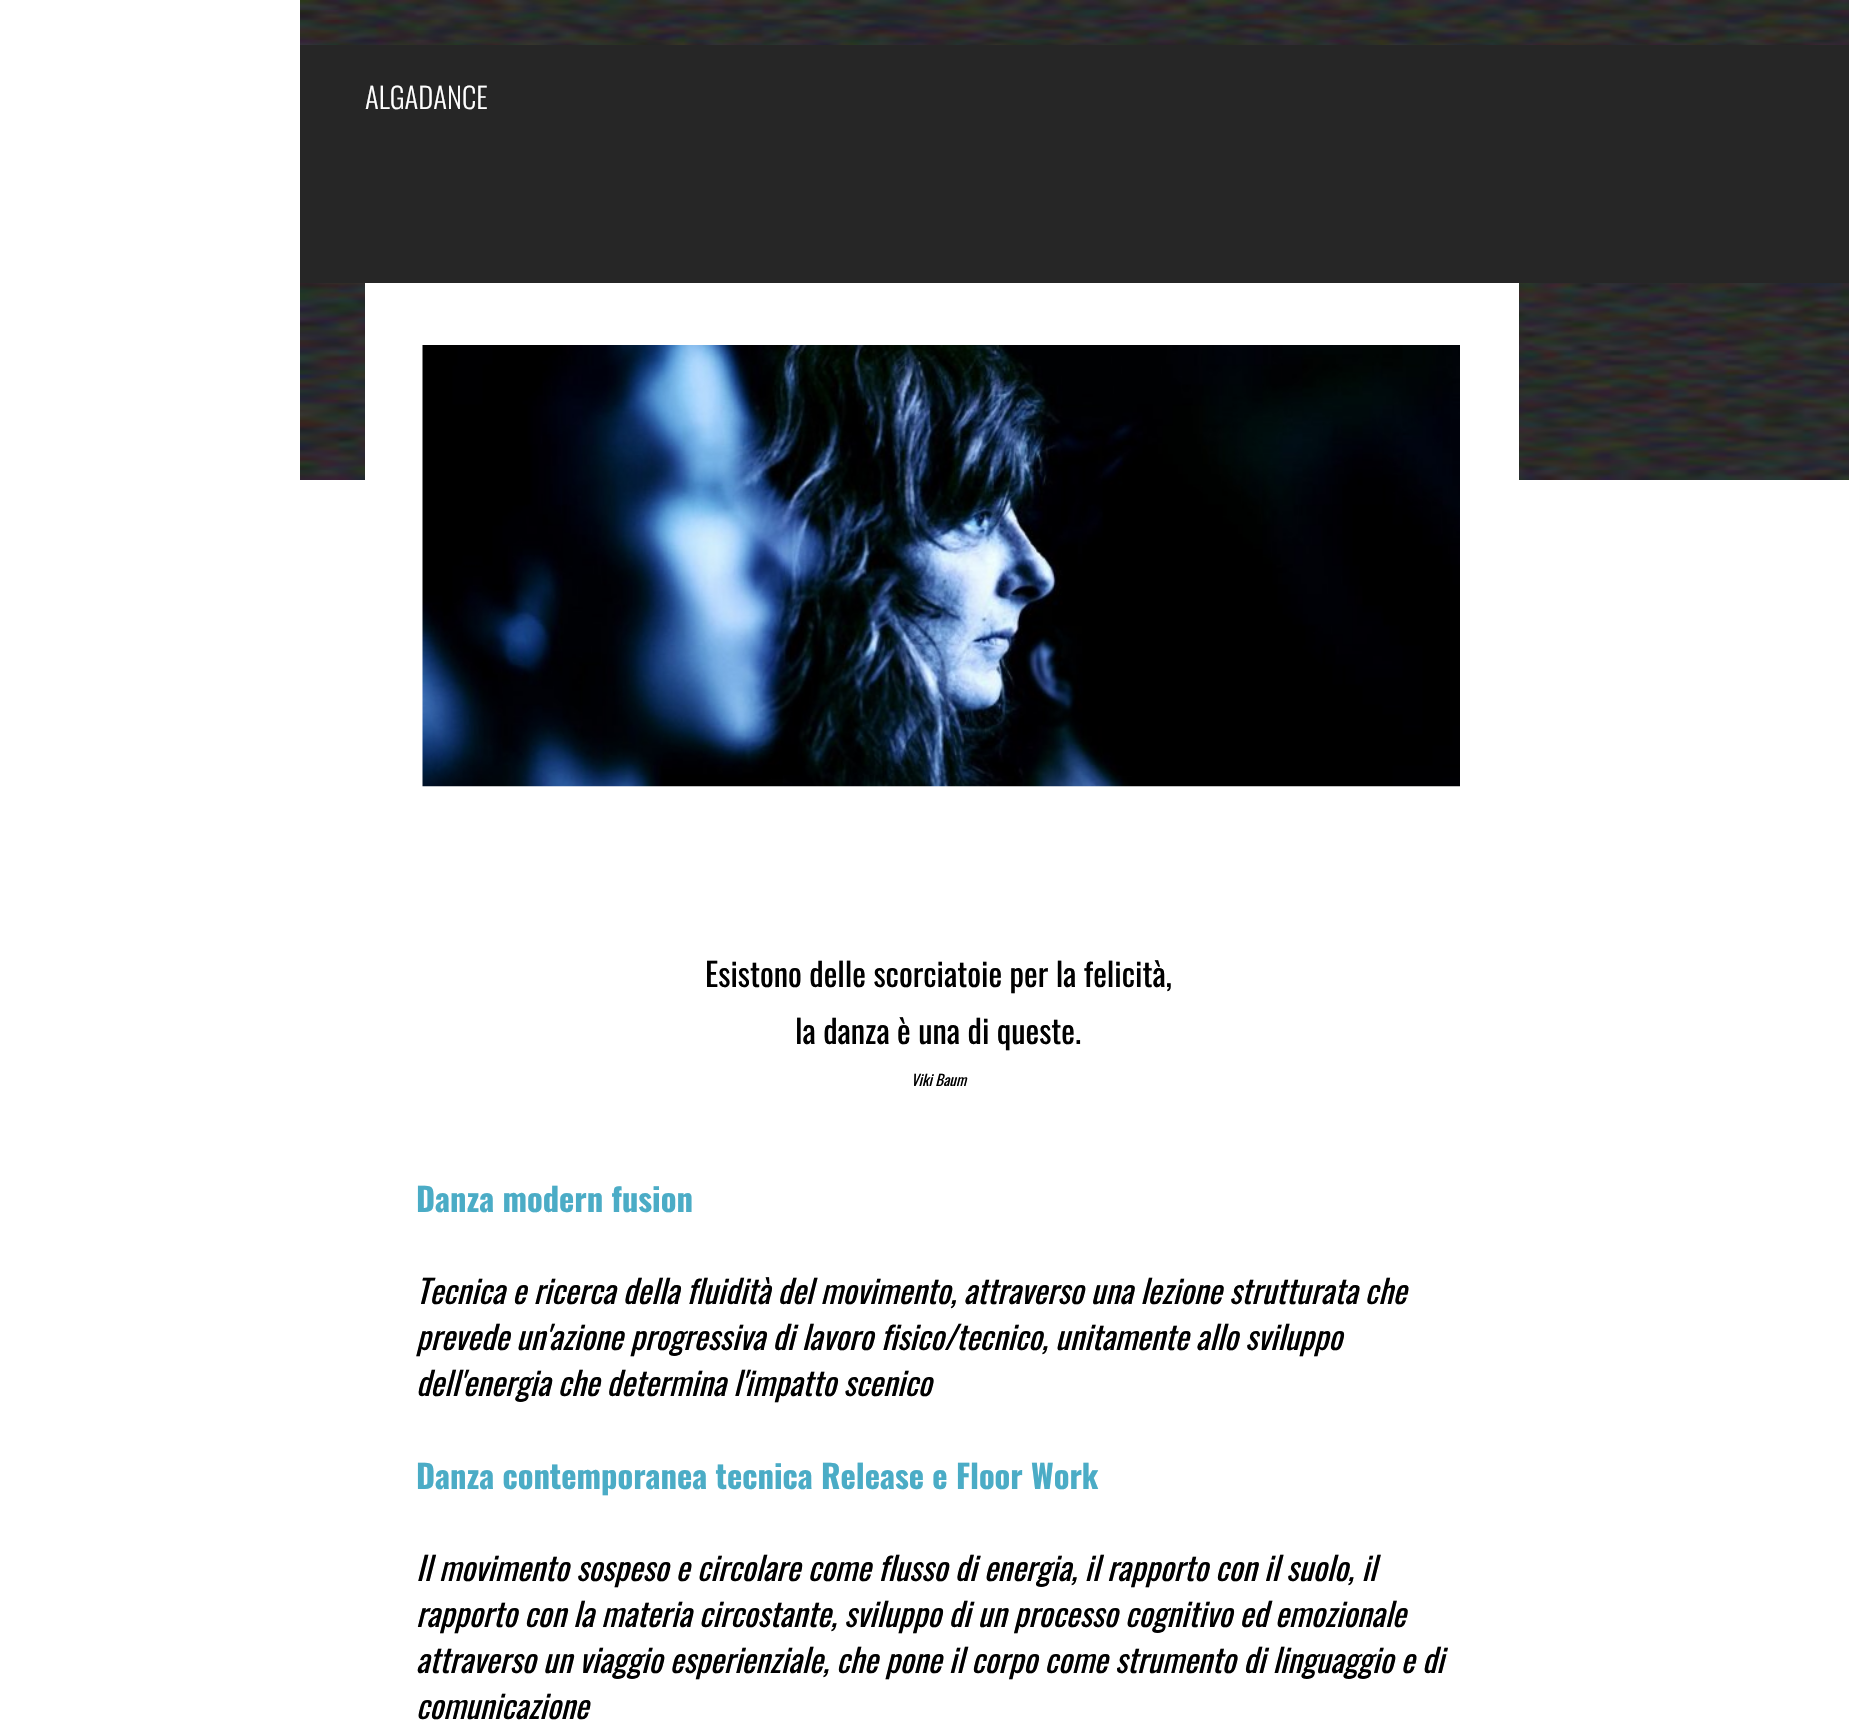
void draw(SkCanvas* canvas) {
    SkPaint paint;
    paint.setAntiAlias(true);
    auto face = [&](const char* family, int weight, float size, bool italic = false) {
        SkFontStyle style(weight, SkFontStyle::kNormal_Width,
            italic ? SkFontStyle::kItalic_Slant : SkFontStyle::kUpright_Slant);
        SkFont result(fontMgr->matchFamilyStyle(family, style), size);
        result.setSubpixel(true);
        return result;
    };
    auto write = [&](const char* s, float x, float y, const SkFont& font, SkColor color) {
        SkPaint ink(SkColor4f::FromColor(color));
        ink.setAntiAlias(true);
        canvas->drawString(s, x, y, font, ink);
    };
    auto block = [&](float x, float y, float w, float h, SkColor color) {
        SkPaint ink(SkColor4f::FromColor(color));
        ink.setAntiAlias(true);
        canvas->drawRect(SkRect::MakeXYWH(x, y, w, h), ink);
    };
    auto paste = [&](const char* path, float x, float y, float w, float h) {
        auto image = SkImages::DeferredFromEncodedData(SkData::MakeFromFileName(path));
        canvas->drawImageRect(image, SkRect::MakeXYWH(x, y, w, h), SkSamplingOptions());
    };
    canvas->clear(SK_ColorWHITE);
    paste("pic1.png", 300, 0, 1549, 480);
    block(300, 45, 1549, 238, SkColorSetRGB(38, 38, 38));
    auto kFont1 = face("Oswald", 300, 28.75f);
    write("ALGADANCE", 365, 109, kFont1, SK_ColorWHITE);
    block(365, 283, 1154, 197, SK_ColorWHITE);
    paste("pic2.png", 422, 345, 1038, 442);
    auto kFont2 = face("Oswald", 400, 32.5f);
    write("Esistono delle scorciatoie per la felicità,", 705, 987, kFont2, SK_ColorBLACK);
    write("la danza è una di queste.", 795, 1044, kFont2, SK_ColorBLACK);
    auto kFont3 = face("Oswald", 400, 15, true);
    write("Viki Baum", 911, 1086, kFont3, SK_ColorBLACK);
    auto kFont4 = face("Oswald", 700, 32.5f);
    write("Danza modern fusion", 416, 1212, kFont4, SkColorSetRGB(75, 172, 198));
    auto kFont5 = face("Oswald", 400, 32.5f, true);
    write("Tecnica e ricerca della fluidità del movimento, attraverso una lezione strutturata che", 416, 1304, kFont5, SK_ColorBLACK);
    write("prevede un'azione progressiva di lavoro fisico/tecnico, unitamente allo sviluppo", 416, 1350, kFont5, SK_ColorBLACK);
    write("dell'energia che determina l'impatto scenico", 416, 1396, kFont5, SK_ColorBLACK);
    write("Danza contemporanea tecnica Release e Floor Work", 416, 1489, kFont4, SkColorSetRGB(75, 172, 198));
    write("Il movimento sospeso e circolare come flusso di energia, il rapporto con il suolo, il", 416, 1581, kFont5, SK_ColorBLACK);
    write("rapporto con la materia circostante, sviluppo di un processo cognitivo ed emozionale", 416, 1627, kFont5, SK_ColorBLACK);
    write("attraverso un viaggio esperienziale, che pone il corpo come strumento di linguaggio e di", 416, 1673, kFont5, SK_ColorBLACK);
    write("comunicazione", 416, 1719, kFont5, SK_ColorBLACK);
}
